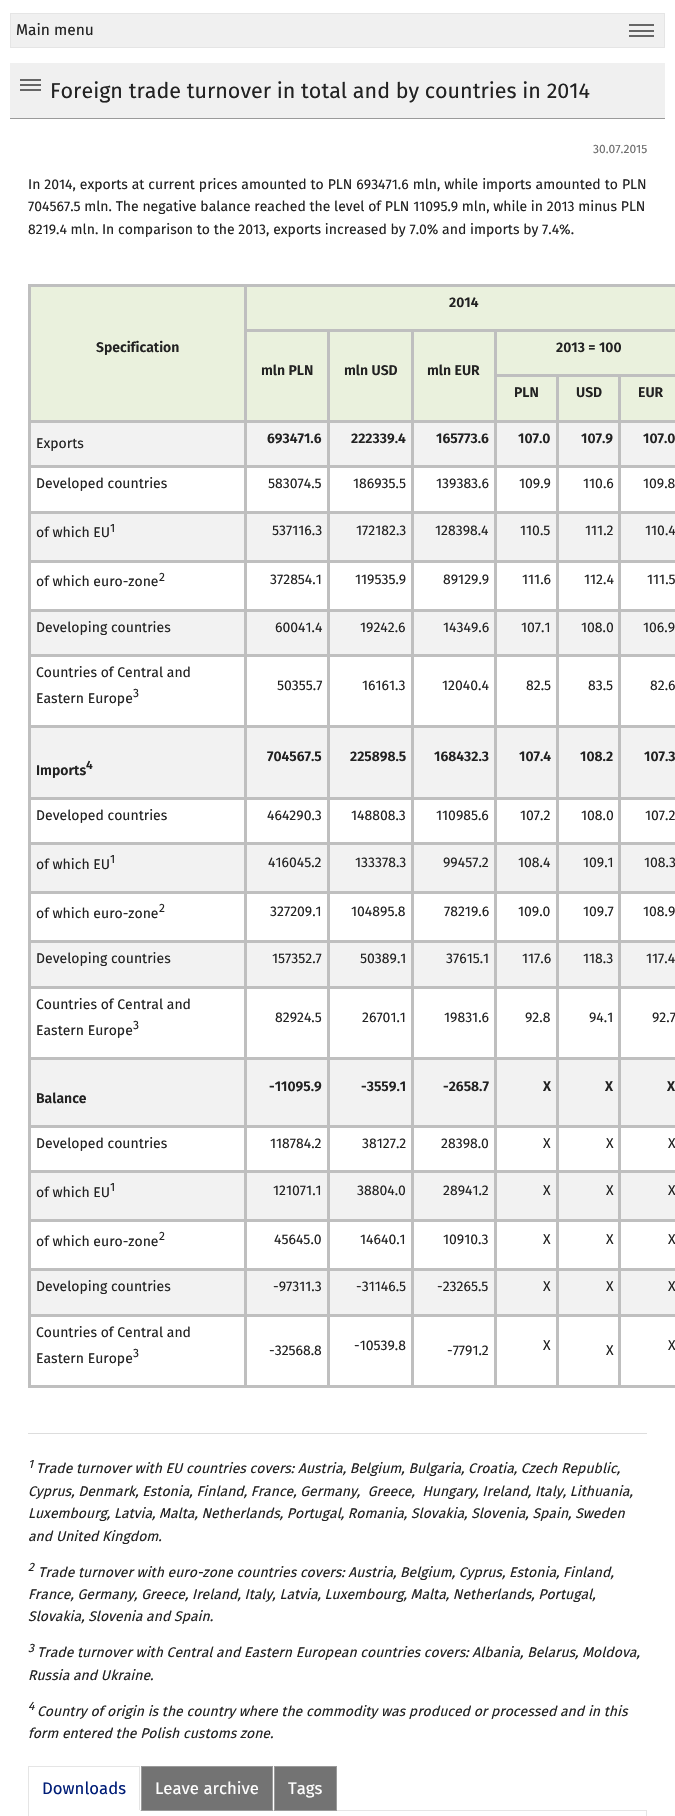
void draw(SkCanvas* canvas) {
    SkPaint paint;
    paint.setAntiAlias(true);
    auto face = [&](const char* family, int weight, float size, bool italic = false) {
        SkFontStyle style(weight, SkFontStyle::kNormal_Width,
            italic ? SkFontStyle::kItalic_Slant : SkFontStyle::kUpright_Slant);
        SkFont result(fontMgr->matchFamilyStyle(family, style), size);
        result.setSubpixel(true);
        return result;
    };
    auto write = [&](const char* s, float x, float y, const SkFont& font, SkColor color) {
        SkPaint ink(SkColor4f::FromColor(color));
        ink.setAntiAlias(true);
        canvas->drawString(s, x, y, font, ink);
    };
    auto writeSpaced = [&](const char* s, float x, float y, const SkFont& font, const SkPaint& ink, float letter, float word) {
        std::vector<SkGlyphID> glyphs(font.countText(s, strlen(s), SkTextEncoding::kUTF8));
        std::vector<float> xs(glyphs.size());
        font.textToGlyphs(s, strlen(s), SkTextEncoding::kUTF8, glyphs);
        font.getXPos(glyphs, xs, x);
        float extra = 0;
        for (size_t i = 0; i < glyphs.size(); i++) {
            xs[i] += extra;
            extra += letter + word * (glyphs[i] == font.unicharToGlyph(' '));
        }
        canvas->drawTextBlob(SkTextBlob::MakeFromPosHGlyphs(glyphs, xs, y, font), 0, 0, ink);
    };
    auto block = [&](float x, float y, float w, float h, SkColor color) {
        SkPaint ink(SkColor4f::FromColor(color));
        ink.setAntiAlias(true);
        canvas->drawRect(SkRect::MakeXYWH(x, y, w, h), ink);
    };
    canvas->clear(SK_ColorWHITE);
    paint.setColor(SkColorSetRGB(240, 240, 240));
    canvas->drawRect(SkRect::MakeXYWH(10.5f, 13.5f, 654, 34), paint);
    paint.setStyle(SkPaint::kStroke_Style);
    paint.setStrokeWidth(1);
    paint.setColor(SkColorSetRGB(229, 229, 229));
    canvas->drawRect(SkRect::MakeXYWH(10.5f, 13.5f, 654, 34), paint);
    auto kFont1 = face("Fira Sans", 400, 15.5f);
    write("Main menu", 16, 35, kFont1, SkColorSetRGB(34, 34, 34));
    block(629, 35, 25, 2, SkColorSetRGB(102, 102, 102));
    block(629, 30, 25, 2, SkColorSetRGB(102, 102, 102));
    block(629, 24, 25, 2, SkColorSetRGB(102, 102, 102));
    block(10, 63, 655, 55, SkColorSetRGB(240, 240, 240));
    block(10, 118, 655, 1, SkColorSetRGB(154, 154, 154));
    block(20, 89, 21, 2, SkColorSetRGB(102, 102, 102));
    block(20, 84, 21, 2, SkColorSetRGB(102, 102, 102));
    block(20, 79, 21, 2, SkColorSetRGB(102, 102, 102));
    auto kFont2 = face("Fira Sans", 400, 21.5f);
    write("Foreign trade turnover in total and by countries in 2014", 50, 98, kFont2, SkColorSetRGB(34, 34, 34));
    auto kFont3 = face("Fira Sans", 400, 12);
    write("30.07.2015", 593, 153, kFont3, SkColorSetRGB(110, 110, 110));
    auto kFont4 = face("Fira Sans", 400, 14);
    paint.setStyle(SkPaint::kFill_Style);
    paint.setColor(SkColorSetRGB(34, 34, 34));
    writeSpaced("In 2014, exports at current prices amounted to PLN 693471.6 mln, while imports amounted to PLN", 28, 189, kFont4, paint, 0, 0.25f);
    write("704567.5 mln. The negative balance reached the level of PLN 11095.9 mln, while in 2013 minus PLN", 28, 211, kFont4, SkColorSetRGB(34, 34, 34));
    write("8219.4 mln. In comparison to the 2013, exports increased by 7.0% and imports by 7.4%.", 28, 234, kFont4, SkColorSetRGB(34, 34, 34));
    block(247, 287, 428, 42, SkColorSetRGB(234, 241, 221));
    block(244, 284, 431, 3, SkColorSetRGB(191, 191, 191));
    block(494, 329, 181, 3, SkColorSetRGB(191, 191, 191));
    block(618, 374, 57, 3, SkColorSetRGB(191, 191, 191));
    block(618, 420, 57, 3, SkColorSetRGB(191, 191, 191));
    block(618, 465, 57, 3, SkColorSetRGB(191, 191, 191));
    block(618, 511, 57, 3, SkColorSetRGB(191, 191, 191));
    block(618, 560, 57, 3, SkColorSetRGB(191, 191, 191));
    block(618, 609, 57, 3, SkColorSetRGB(191, 191, 191));
    block(618, 654, 57, 3, SkColorSetRGB(191, 191, 191));
    block(618, 725, 57, 3, SkColorSetRGB(191, 191, 191));
    block(618, 797, 57, 3, SkColorSetRGB(191, 191, 191));
    block(618, 842, 57, 3, SkColorSetRGB(191, 191, 191));
    block(618, 891, 57, 3, SkColorSetRGB(191, 191, 191));
    block(618, 940, 57, 3, SkColorSetRGB(191, 191, 191));
    block(618, 986, 57, 3, SkColorSetRGB(191, 191, 191));
    block(618, 1057, 57, 3, SkColorSetRGB(191, 191, 191));
    block(618, 1125, 57, 3, SkColorSetRGB(191, 191, 191));
    block(618, 1170, 57, 3, SkColorSetRGB(191, 191, 191));
    block(618, 1219, 57, 3, SkColorSetRGB(191, 191, 191));
    block(618, 1268, 57, 3, SkColorSetRGB(191, 191, 191));
    block(618, 1314, 57, 3, SkColorSetRGB(191, 191, 191));
    block(618, 1385, 57, 3, SkColorSetRGB(191, 191, 191));
    block(618, 1314, 3, 74, SkColorSetRGB(191, 191, 191));
    block(556, 1314, 65, 3, SkColorSetRGB(191, 191, 191));
    block(618, 1268, 3, 49, SkColorSetRGB(191, 191, 191));
    block(556, 1268, 65, 3, SkColorSetRGB(191, 191, 191));
    block(618, 1219, 3, 52, SkColorSetRGB(191, 191, 191));
    block(556, 1219, 65, 3, SkColorSetRGB(191, 191, 191));
    block(618, 1170, 3, 52, SkColorSetRGB(191, 191, 191));
    block(556, 1170, 65, 3, SkColorSetRGB(191, 191, 191));
    block(618, 1125, 3, 48, SkColorSetRGB(191, 191, 191));
    block(556, 1125, 65, 3, SkColorSetRGB(191, 191, 191));
    block(618, 1057, 3, 71, SkColorSetRGB(191, 191, 191));
    block(556, 1057, 65, 3, SkColorSetRGB(191, 191, 191));
    block(618, 986, 3, 74, SkColorSetRGB(191, 191, 191));
    block(556, 986, 65, 3, SkColorSetRGB(191, 191, 191));
    block(618, 940, 3, 49, SkColorSetRGB(191, 191, 191));
    block(556, 940, 65, 3, SkColorSetRGB(191, 191, 191));
    block(618, 891, 3, 52, SkColorSetRGB(191, 191, 191));
    block(556, 891, 65, 3, SkColorSetRGB(191, 191, 191));
    block(618, 842, 3, 52, SkColorSetRGB(191, 191, 191));
    block(556, 842, 65, 3, SkColorSetRGB(191, 191, 191));
    block(618, 797, 3, 48, SkColorSetRGB(191, 191, 191));
    block(556, 797, 65, 3, SkColorSetRGB(191, 191, 191));
    block(618, 725, 3, 75, SkColorSetRGB(191, 191, 191));
    block(556, 725, 65, 3, SkColorSetRGB(191, 191, 191));
    block(618, 654, 3, 74, SkColorSetRGB(191, 191, 191));
    block(556, 654, 65, 3, SkColorSetRGB(191, 191, 191));
    block(618, 609, 3, 48, SkColorSetRGB(191, 191, 191));
    block(556, 609, 65, 3, SkColorSetRGB(191, 191, 191));
    block(618, 560, 3, 52, SkColorSetRGB(191, 191, 191));
    block(556, 560, 65, 3, SkColorSetRGB(191, 191, 191));
    block(618, 511, 3, 52, SkColorSetRGB(191, 191, 191));
    block(556, 511, 65, 3, SkColorSetRGB(191, 191, 191));
    block(618, 465, 3, 49, SkColorSetRGB(191, 191, 191));
    block(556, 465, 65, 3, SkColorSetRGB(191, 191, 191));
    block(618, 420, 3, 48, SkColorSetRGB(191, 191, 191));
    block(556, 420, 65, 3, SkColorSetRGB(191, 191, 191));
    block(618, 374, 3, 49, SkColorSetRGB(191, 191, 191));
    block(556, 374, 65, 3, SkColorSetRGB(191, 191, 191));
    block(556, 1385, 65, 3, SkColorSetRGB(191, 191, 191));
    block(556, 1314, 3, 74, SkColorSetRGB(191, 191, 191));
    block(494, 1314, 65, 3, SkColorSetRGB(191, 191, 191));
    block(556, 1268, 3, 49, SkColorSetRGB(191, 191, 191));
    block(494, 1268, 65, 3, SkColorSetRGB(191, 191, 191));
    block(556, 1219, 3, 52, SkColorSetRGB(191, 191, 191));
    block(494, 1219, 65, 3, SkColorSetRGB(191, 191, 191));
    block(556, 1170, 3, 52, SkColorSetRGB(191, 191, 191));
    block(494, 1170, 65, 3, SkColorSetRGB(191, 191, 191));
    block(556, 1125, 3, 48, SkColorSetRGB(191, 191, 191));
    block(494, 1125, 65, 3, SkColorSetRGB(191, 191, 191));
    block(556, 1057, 3, 71, SkColorSetRGB(191, 191, 191));
    block(494, 1057, 65, 3, SkColorSetRGB(191, 191, 191));
    block(556, 986, 3, 74, SkColorSetRGB(191, 191, 191));
    block(494, 986, 65, 3, SkColorSetRGB(191, 191, 191));
    block(556, 940, 3, 49, SkColorSetRGB(191, 191, 191));
    block(494, 940, 65, 3, SkColorSetRGB(191, 191, 191));
    block(556, 891, 3, 52, SkColorSetRGB(191, 191, 191));
    block(494, 891, 65, 3, SkColorSetRGB(191, 191, 191));
    block(556, 842, 3, 52, SkColorSetRGB(191, 191, 191));
    block(494, 842, 65, 3, SkColorSetRGB(191, 191, 191));
    block(556, 797, 3, 48, SkColorSetRGB(191, 191, 191));
    block(494, 797, 65, 3, SkColorSetRGB(191, 191, 191));
    block(556, 725, 3, 75, SkColorSetRGB(191, 191, 191));
    block(494, 725, 65, 3, SkColorSetRGB(191, 191, 191));
    block(556, 654, 3, 74, SkColorSetRGB(191, 191, 191));
    block(494, 654, 65, 3, SkColorSetRGB(191, 191, 191));
    block(556, 609, 3, 48, SkColorSetRGB(191, 191, 191));
    block(494, 609, 65, 3, SkColorSetRGB(191, 191, 191));
    block(556, 560, 3, 52, SkColorSetRGB(191, 191, 191));
    block(494, 560, 65, 3, SkColorSetRGB(191, 191, 191));
    block(556, 511, 3, 52, SkColorSetRGB(191, 191, 191));
    block(494, 511, 65, 3, SkColorSetRGB(191, 191, 191));
    block(556, 465, 3, 49, SkColorSetRGB(191, 191, 191));
    block(494, 465, 65, 3, SkColorSetRGB(191, 191, 191));
    block(556, 420, 3, 48, SkColorSetRGB(191, 191, 191));
    block(494, 420, 65, 3, SkColorSetRGB(191, 191, 191));
    block(556, 374, 3, 49, SkColorSetRGB(191, 191, 191));
    block(494, 374, 65, 3, SkColorSetRGB(191, 191, 191));
    block(494, 1385, 65, 3, SkColorSetRGB(191, 191, 191));
    block(494, 1314, 3, 74, SkColorSetRGB(191, 191, 191));
    block(411, 1314, 86, 3, SkColorSetRGB(191, 191, 191));
    block(494, 1268, 3, 49, SkColorSetRGB(191, 191, 191));
    block(411, 1268, 86, 3, SkColorSetRGB(191, 191, 191));
    block(494, 1219, 3, 52, SkColorSetRGB(191, 191, 191));
    block(411, 1219, 86, 3, SkColorSetRGB(191, 191, 191));
    block(494, 1170, 3, 52, SkColorSetRGB(191, 191, 191));
    block(411, 1170, 86, 3, SkColorSetRGB(191, 191, 191));
    block(494, 1125, 3, 48, SkColorSetRGB(191, 191, 191));
    block(411, 1125, 86, 3, SkColorSetRGB(191, 191, 191));
    block(494, 1057, 3, 71, SkColorSetRGB(191, 191, 191));
    block(411, 1057, 86, 3, SkColorSetRGB(191, 191, 191));
    block(494, 986, 3, 74, SkColorSetRGB(191, 191, 191));
    block(411, 986, 86, 3, SkColorSetRGB(191, 191, 191));
    block(494, 940, 3, 49, SkColorSetRGB(191, 191, 191));
    block(411, 940, 86, 3, SkColorSetRGB(191, 191, 191));
    block(494, 891, 3, 52, SkColorSetRGB(191, 191, 191));
    block(411, 891, 86, 3, SkColorSetRGB(191, 191, 191));
    block(494, 842, 3, 52, SkColorSetRGB(191, 191, 191));
    block(411, 842, 86, 3, SkColorSetRGB(191, 191, 191));
    block(494, 797, 3, 48, SkColorSetRGB(191, 191, 191));
    block(411, 797, 86, 3, SkColorSetRGB(191, 191, 191));
    block(494, 725, 3, 75, SkColorSetRGB(191, 191, 191));
    block(411, 725, 86, 3, SkColorSetRGB(191, 191, 191));
    block(494, 654, 3, 74, SkColorSetRGB(191, 191, 191));
    block(411, 654, 86, 3, SkColorSetRGB(191, 191, 191));
    block(494, 609, 3, 48, SkColorSetRGB(191, 191, 191));
    block(411, 609, 86, 3, SkColorSetRGB(191, 191, 191));
    block(494, 560, 3, 52, SkColorSetRGB(191, 191, 191));
    block(411, 560, 86, 3, SkColorSetRGB(191, 191, 191));
    block(494, 511, 3, 52, SkColorSetRGB(191, 191, 191));
    block(411, 511, 86, 3, SkColorSetRGB(191, 191, 191));
    block(494, 465, 3, 49, SkColorSetRGB(191, 191, 191));
    block(411, 465, 86, 3, SkColorSetRGB(191, 191, 191));
    block(494, 420, 3, 48, SkColorSetRGB(191, 191, 191));
    block(411, 420, 86, 3, SkColorSetRGB(191, 191, 191));
    block(494, 374, 3, 49, SkColorSetRGB(191, 191, 191));
    block(494, 329, 3, 48, SkColorSetRGB(191, 191, 191));
    block(411, 329, 86, 3, SkColorSetRGB(191, 191, 191));
    block(411, 1385, 86, 3, SkColorSetRGB(191, 191, 191));
    block(411, 1314, 3, 74, SkColorSetRGB(191, 191, 191));
    block(327, 1314, 87, 3, SkColorSetRGB(191, 191, 191));
    block(411, 1268, 3, 49, SkColorSetRGB(191, 191, 191));
    block(327, 1268, 87, 3, SkColorSetRGB(191, 191, 191));
    block(411, 1219, 3, 52, SkColorSetRGB(191, 191, 191));
    block(327, 1219, 87, 3, SkColorSetRGB(191, 191, 191));
    block(411, 1170, 3, 52, SkColorSetRGB(191, 191, 191));
    block(327, 1170, 87, 3, SkColorSetRGB(191, 191, 191));
    block(411, 1125, 3, 48, SkColorSetRGB(191, 191, 191));
    block(327, 1125, 87, 3, SkColorSetRGB(191, 191, 191));
    block(411, 1057, 3, 71, SkColorSetRGB(191, 191, 191));
    block(327, 1057, 87, 3, SkColorSetRGB(191, 191, 191));
    block(411, 986, 3, 74, SkColorSetRGB(191, 191, 191));
    block(327, 986, 87, 3, SkColorSetRGB(191, 191, 191));
    block(411, 940, 3, 49, SkColorSetRGB(191, 191, 191));
    block(327, 940, 87, 3, SkColorSetRGB(191, 191, 191));
    block(411, 891, 3, 52, SkColorSetRGB(191, 191, 191));
    block(327, 891, 87, 3, SkColorSetRGB(191, 191, 191));
    block(411, 842, 3, 52, SkColorSetRGB(191, 191, 191));
    block(327, 842, 87, 3, SkColorSetRGB(191, 191, 191));
    block(411, 797, 3, 48, SkColorSetRGB(191, 191, 191));
    block(327, 797, 87, 3, SkColorSetRGB(191, 191, 191));
    block(411, 725, 3, 75, SkColorSetRGB(191, 191, 191));
    block(327, 725, 87, 3, SkColorSetRGB(191, 191, 191));
    block(411, 654, 3, 74, SkColorSetRGB(191, 191, 191));
    block(327, 654, 87, 3, SkColorSetRGB(191, 191, 191));
    block(411, 609, 3, 48, SkColorSetRGB(191, 191, 191));
    block(327, 609, 87, 3, SkColorSetRGB(191, 191, 191));
    block(411, 560, 3, 52, SkColorSetRGB(191, 191, 191));
    block(327, 560, 87, 3, SkColorSetRGB(191, 191, 191));
    block(411, 511, 3, 52, SkColorSetRGB(191, 191, 191));
    block(327, 511, 87, 3, SkColorSetRGB(191, 191, 191));
    block(411, 465, 3, 49, SkColorSetRGB(191, 191, 191));
    block(327, 465, 87, 3, SkColorSetRGB(191, 191, 191));
    block(411, 420, 3, 48, SkColorSetRGB(191, 191, 191));
    block(327, 420, 87, 3, SkColorSetRGB(191, 191, 191));
    block(411, 329, 3, 94, SkColorSetRGB(191, 191, 191));
    block(327, 329, 87, 3, SkColorSetRGB(191, 191, 191));
    block(327, 1385, 87, 3, SkColorSetRGB(191, 191, 191));
    block(327, 1314, 3, 74, SkColorSetRGB(191, 191, 191));
    block(244, 1314, 86, 3, SkColorSetRGB(191, 191, 191));
    block(327, 1268, 3, 49, SkColorSetRGB(191, 191, 191));
    block(244, 1268, 86, 3, SkColorSetRGB(191, 191, 191));
    block(327, 1219, 3, 52, SkColorSetRGB(191, 191, 191));
    block(244, 1219, 86, 3, SkColorSetRGB(191, 191, 191));
    block(327, 1170, 3, 52, SkColorSetRGB(191, 191, 191));
    block(244, 1170, 86, 3, SkColorSetRGB(191, 191, 191));
    block(327, 1125, 3, 48, SkColorSetRGB(191, 191, 191));
    block(244, 1125, 86, 3, SkColorSetRGB(191, 191, 191));
    block(327, 1057, 3, 71, SkColorSetRGB(191, 191, 191));
    block(244, 1057, 86, 3, SkColorSetRGB(191, 191, 191));
    block(327, 986, 3, 74, SkColorSetRGB(191, 191, 191));
    block(244, 986, 86, 3, SkColorSetRGB(191, 191, 191));
    block(327, 940, 3, 49, SkColorSetRGB(191, 191, 191));
    block(244, 940, 86, 3, SkColorSetRGB(191, 191, 191));
    block(327, 891, 3, 52, SkColorSetRGB(191, 191, 191));
    block(244, 891, 86, 3, SkColorSetRGB(191, 191, 191));
    block(327, 842, 3, 52, SkColorSetRGB(191, 191, 191));
    block(244, 842, 86, 3, SkColorSetRGB(191, 191, 191));
    block(327, 797, 3, 48, SkColorSetRGB(191, 191, 191));
    block(244, 797, 86, 3, SkColorSetRGB(191, 191, 191));
    block(327, 725, 3, 75, SkColorSetRGB(191, 191, 191));
    block(244, 725, 86, 3, SkColorSetRGB(191, 191, 191));
    block(327, 654, 3, 74, SkColorSetRGB(191, 191, 191));
    block(244, 654, 86, 3, SkColorSetRGB(191, 191, 191));
    block(327, 609, 3, 48, SkColorSetRGB(191, 191, 191));
    block(244, 609, 86, 3, SkColorSetRGB(191, 191, 191));
    block(327, 560, 3, 52, SkColorSetRGB(191, 191, 191));
    block(244, 560, 86, 3, SkColorSetRGB(191, 191, 191));
    block(327, 511, 3, 52, SkColorSetRGB(191, 191, 191));
    block(244, 511, 86, 3, SkColorSetRGB(191, 191, 191));
    block(327, 465, 3, 49, SkColorSetRGB(191, 191, 191));
    block(244, 465, 86, 3, SkColorSetRGB(191, 191, 191));
    block(327, 420, 3, 48, SkColorSetRGB(191, 191, 191));
    block(244, 420, 86, 3, SkColorSetRGB(191, 191, 191));
    block(327, 329, 3, 94, SkColorSetRGB(191, 191, 191));
    block(244, 329, 86, 3, SkColorSetRGB(191, 191, 191));
    block(244, 1385, 86, 3, SkColorSetRGB(191, 191, 191));
    block(244, 1314, 3, 74, SkColorSetRGB(191, 191, 191));
    block(28, 1314, 219, 3, SkColorSetRGB(191, 191, 191));
    block(244, 1268, 3, 49, SkColorSetRGB(191, 191, 191));
    block(28, 1268, 219, 3, SkColorSetRGB(191, 191, 191));
    block(244, 1219, 3, 52, SkColorSetRGB(191, 191, 191));
    block(28, 1219, 219, 3, SkColorSetRGB(191, 191, 191));
    block(244, 1170, 3, 52, SkColorSetRGB(191, 191, 191));
    block(28, 1170, 219, 3, SkColorSetRGB(191, 191, 191));
    block(244, 1125, 3, 48, SkColorSetRGB(191, 191, 191));
    block(28, 1125, 219, 3, SkColorSetRGB(191, 191, 191));
    block(244, 1057, 3, 71, SkColorSetRGB(191, 191, 191));
    block(28, 1057, 219, 3, SkColorSetRGB(191, 191, 191));
    block(244, 986, 3, 74, SkColorSetRGB(191, 191, 191));
    block(28, 986, 219, 3, SkColorSetRGB(191, 191, 191));
    block(244, 940, 3, 49, SkColorSetRGB(191, 191, 191));
    block(28, 940, 219, 3, SkColorSetRGB(191, 191, 191));
    block(244, 891, 3, 52, SkColorSetRGB(191, 191, 191));
    block(28, 891, 219, 3, SkColorSetRGB(191, 191, 191));
    block(244, 842, 3, 52, SkColorSetRGB(191, 191, 191));
    block(28, 842, 219, 3, SkColorSetRGB(191, 191, 191));
    block(244, 797, 3, 48, SkColorSetRGB(191, 191, 191));
    block(28, 797, 219, 3, SkColorSetRGB(191, 191, 191));
    block(244, 725, 3, 75, SkColorSetRGB(191, 191, 191));
    block(28, 725, 219, 3, SkColorSetRGB(191, 191, 191));
    block(244, 654, 3, 74, SkColorSetRGB(191, 191, 191));
    block(28, 654, 219, 3, SkColorSetRGB(191, 191, 191));
    block(244, 609, 3, 48, SkColorSetRGB(191, 191, 191));
    block(28, 609, 219, 3, SkColorSetRGB(191, 191, 191));
    block(244, 560, 3, 52, SkColorSetRGB(191, 191, 191));
    block(28, 560, 219, 3, SkColorSetRGB(191, 191, 191));
    block(244, 511, 3, 52, SkColorSetRGB(191, 191, 191));
    block(28, 511, 219, 3, SkColorSetRGB(191, 191, 191));
    block(244, 465, 3, 49, SkColorSetRGB(191, 191, 191));
    block(28, 465, 219, 3, SkColorSetRGB(191, 191, 191));
    block(244, 420, 3, 48, SkColorSetRGB(191, 191, 191));
    block(28, 420, 219, 3, SkColorSetRGB(191, 191, 191));
    block(244, 329, 3, 94, SkColorSetRGB(191, 191, 191));
    block(244, 284, 3, 48, SkColorSetRGB(191, 191, 191));
    auto kFont5 = face("Fira Sans", 600, 14);
    write("2014", 449, 307, kFont5, SkColorSetRGB(34, 34, 34));
    block(31, 287, 213, 133, SkColorSetRGB(234, 241, 221));
    block(28, 284, 219, 3, SkColorSetRGB(191, 191, 191));
    block(28, 1385, 219, 3, SkColorSetRGB(191, 191, 191));
    block(28, 1314, 3, 74, SkColorSetRGB(191, 191, 191));
    block(28, 1268, 3, 49, SkColorSetRGB(191, 191, 191));
    block(28, 1219, 3, 52, SkColorSetRGB(191, 191, 191));
    block(28, 1170, 3, 52, SkColorSetRGB(191, 191, 191));
    block(28, 1125, 3, 48, SkColorSetRGB(191, 191, 191));
    block(28, 1057, 3, 71, SkColorSetRGB(191, 191, 191));
    block(28, 986, 3, 74, SkColorSetRGB(191, 191, 191));
    block(28, 940, 3, 49, SkColorSetRGB(191, 191, 191));
    block(28, 891, 3, 52, SkColorSetRGB(191, 191, 191));
    block(28, 842, 3, 52, SkColorSetRGB(191, 191, 191));
    block(28, 797, 3, 48, SkColorSetRGB(191, 191, 191));
    block(28, 725, 3, 75, SkColorSetRGB(191, 191, 191));
    block(28, 654, 3, 74, SkColorSetRGB(191, 191, 191));
    block(28, 609, 3, 48, SkColorSetRGB(191, 191, 191));
    block(28, 560, 3, 52, SkColorSetRGB(191, 191, 191));
    block(28, 511, 3, 52, SkColorSetRGB(191, 191, 191));
    block(28, 465, 3, 49, SkColorSetRGB(191, 191, 191));
    block(28, 420, 3, 48, SkColorSetRGB(191, 191, 191));
    block(28, 284, 3, 139, SkColorSetRGB(191, 191, 191));
    write("Specification", 96, 352, kFont5, SkColorSetRGB(34, 34, 34));
    block(497, 332, 178, 42, SkColorSetRGB(234, 241, 221));
    write("2013 = 100", 556, 352, kFont5, SkColorSetRGB(34, 34, 34));
    block(247, 332, 80, 88, SkColorSetRGB(234, 241, 221));
    write("mln PLN", 261, 375, kFont5, SkColorSetRGB(34, 34, 34));
    block(330, 332, 81, 88, SkColorSetRGB(234, 241, 221));
    write("mln USD", 344, 375, kFont5, SkColorSetRGB(34, 34, 34));
    block(414, 332, 80, 88, SkColorSetRGB(234, 241, 221));
    write("mln EUR", 427, 375, kFont5, SkColorSetRGB(34, 34, 34));
    block(497, 377, 59, 43, SkColorSetRGB(234, 241, 221));
    write("PLN", 514, 397, kFont5, SkColorSetRGB(34, 34, 34));
    block(559, 377, 59, 43, SkColorSetRGB(234, 241, 221));
    write("USD", 576, 397, kFont5, SkColorSetRGB(34, 34, 34));
    block(621, 377, 54, 43, SkColorSetRGB(234, 241, 221));
    write("EUR", 638, 397, kFont5, SkColorSetRGB(34, 34, 34));
    block(31, 423, 213, 42, SkColorSetRGB(242, 242, 242));
    write("Exports", 36, 448, kFont4, SkColorSetRGB(34, 34, 34));
    block(247, 423, 80, 42, SkColorSetRGB(242, 242, 242));
    write("693471.6", 267, 443, kFont5, SkColorSetRGB(34, 34, 34));
    block(330, 423, 81, 42, SkColorSetRGB(242, 242, 242));
    write("222339.4", 351, 443, kFont5, SkColorSetRGB(34, 34, 34));
    block(414, 423, 80, 42, SkColorSetRGB(242, 242, 242));
    write("165773.6", 436, 443, kFont5, SkColorSetRGB(34, 34, 34));
    block(497, 423, 59, 42, SkColorSetRGB(242, 242, 242));
    write("107.0", 518, 443, kFont5, SkColorSetRGB(34, 34, 34));
    block(559, 423, 59, 42, SkColorSetRGB(242, 242, 242));
    write("107.9", 581, 443, kFont5, SkColorSetRGB(34, 34, 34));
    block(621, 423, 54, 42, SkColorSetRGB(242, 242, 242));
    write("107.0", 643, 443, kFont5, SkColorSetRGB(34, 34, 34));
    write("Developed countries", 36, 488, kFont4, SkColorSetRGB(34, 34, 34));
    write("583074.5", 268, 488, kFont4, SkColorSetRGB(34, 34, 34));
    write("186935.5", 353, 488, kFont4, SkColorSetRGB(34, 34, 34));
    write("139383.6", 436, 488, kFont4, SkColorSetRGB(34, 34, 34));
    write("109.9", 519, 488, kFont4, SkColorSetRGB(34, 34, 34));
    write("110.6", 583, 488, kFont4, SkColorSetRGB(34, 34, 34));
    write("109.8", 643, 488, kFont4, SkColorSetRGB(34, 34, 34));
    block(31, 514, 213, 46, SkColorSetRGB(242, 242, 242));
    write("of which EU", 36, 537, kFont4, SkColorSetRGB(34, 34, 34));
    write("1", 110, 532, kFont3, SkColorSetRGB(34, 34, 34));
    block(247, 514, 80, 46, SkColorSetRGB(242, 242, 242));
    write("537116.3", 272, 535, kFont4, SkColorSetRGB(34, 34, 34));
    block(330, 514, 81, 46, SkColorSetRGB(242, 242, 242));
    write("172182.3", 356, 535, kFont4, SkColorSetRGB(34, 34, 34));
    block(414, 514, 80, 46, SkColorSetRGB(242, 242, 242));
    write("128398.4", 435, 535, kFont4, SkColorSetRGB(34, 34, 34));
    block(497, 514, 59, 46, SkColorSetRGB(242, 242, 242));
    write("110.5", 520, 535, kFont4, SkColorSetRGB(34, 34, 34));
    block(559, 514, 59, 46, SkColorSetRGB(242, 242, 242));
    write("111.2", 585, 535, kFont4, SkColorSetRGB(34, 34, 34));
    block(621, 514, 54, 46, SkColorSetRGB(242, 242, 242));
    write("110.4", 645, 535, kFont4, SkColorSetRGB(34, 34, 34));
    write("of which euro-zone", 36, 586, kFont4, SkColorSetRGB(34, 34, 34));
    write("2", 159, 581, kFont3, SkColorSetRGB(34, 34, 34));
    write("372854.1", 270, 584, kFont4, SkColorSetRGB(34, 34, 34));
    write("119535.9", 355, 584, kFont4, SkColorSetRGB(34, 34, 34));
    write("89129.9", 443, 584, kFont4, SkColorSetRGB(34, 34, 34));
    write("111.6", 522, 584, kFont4, SkColorSetRGB(34, 34, 34));
    write("112.4", 584, 584, kFont4, SkColorSetRGB(34, 34, 34));
    write("111.5", 647, 584, kFont4, SkColorSetRGB(34, 34, 34));
    block(31, 612, 213, 42, SkColorSetRGB(242, 242, 242));
    write("Developing countries", 36, 632, kFont4, SkColorSetRGB(34, 34, 34));
    block(247, 612, 80, 42, SkColorSetRGB(242, 242, 242));
    write("60041.4", 275, 632, kFont4, SkColorSetRGB(34, 34, 34));
    block(330, 612, 81, 42, SkColorSetRGB(242, 242, 242));
    write("19242.6", 360, 632, kFont4, SkColorSetRGB(34, 34, 34));
    block(414, 612, 80, 42, SkColorSetRGB(242, 242, 242));
    write("14349.6", 443, 632, kFont4, SkColorSetRGB(34, 34, 34));
    block(497, 612, 59, 42, SkColorSetRGB(242, 242, 242));
    write("107.1", 521, 632, kFont4, SkColorSetRGB(34, 34, 34));
    block(559, 612, 59, 42, SkColorSetRGB(242, 242, 242));
    write("108.0", 581, 632, kFont4, SkColorSetRGB(34, 34, 34));
    block(621, 612, 54, 42, SkColorSetRGB(242, 242, 242));
    write("106.9", 643, 632, kFont4, SkColorSetRGB(34, 34, 34));
    write("Countries of Central and", 36, 677, kFont4, SkColorSetRGB(34, 34, 34));
    write("Eastern Europe", 36, 703, kFont4, SkColorSetRGB(34, 34, 34));
    write("3", 133, 697, kFont3, SkColorSetRGB(34, 34, 34));
    write("50355.7", 277, 690, kFont4, SkColorSetRGB(34, 34, 34));
    write("16161.3", 362, 690, kFont4, SkColorSetRGB(34, 34, 34));
    write("12040.4", 442, 690, kFont4, SkColorSetRGB(34, 34, 34));
    write("82.5", 526, 690, kFont4, SkColorSetRGB(34, 34, 34));
    write("83.5", 588, 690, kFont4, SkColorSetRGB(34, 34, 34));
    write("82.6", 650, 690, kFont4, SkColorSetRGB(34, 34, 34));
    block(247, 728, 80, 69, SkColorSetRGB(242, 242, 242));
    write("704567.5", 267, 761, kFont5, SkColorSetRGB(34, 34, 34));
    block(330, 728, 81, 69, SkColorSetRGB(242, 242, 242));
    write("225898.5", 350, 761, kFont5, SkColorSetRGB(34, 34, 34));
    block(414, 728, 80, 69, SkColorSetRGB(242, 242, 242));
    write("168432.3", 434, 761, kFont5, SkColorSetRGB(34, 34, 34));
    block(497, 728, 59, 69, SkColorSetRGB(242, 242, 242));
    write("107.4", 519, 761, kFont5, SkColorSetRGB(34, 34, 34));
    block(559, 728, 59, 69, SkColorSetRGB(242, 242, 242));
    write("108.2", 580, 761, kFont5, SkColorSetRGB(34, 34, 34));
    block(621, 728, 54, 69, SkColorSetRGB(242, 242, 242));
    write("107.3", 644, 761, kFont5, SkColorSetRGB(34, 34, 34));
    block(31, 728, 213, 69, SkColorSetRGB(242, 242, 242));
    write("Imports", 36, 775, kFont5, SkColorSetRGB(34, 34, 34));
    auto kFont6 = face("Fira Sans", 600, 12);
    write("4", 86, 769, kFont6, SkColorSetRGB(34, 34, 34));
    write("Developed countries", 36, 820, kFont4, SkColorSetRGB(34, 34, 34));
    write("464290.3", 267, 820, kFont4, SkColorSetRGB(34, 34, 34));
    write("148808.3", 351, 820, kFont4, SkColorSetRGB(34, 34, 34));
    write("110985.6", 436, 820, kFont4, SkColorSetRGB(34, 34, 34));
    write("107.2", 520, 820, kFont4, SkColorSetRGB(34, 34, 34));
    write("108.0", 581, 820, kFont4, SkColorSetRGB(34, 34, 34));
    write("107.2", 645, 820, kFont4, SkColorSetRGB(34, 34, 34));
    block(31, 845, 213, 46, SkColorSetRGB(242, 242, 242));
    write("of which EU", 36, 869, kFont4, SkColorSetRGB(34, 34, 34));
    write("1", 110, 863, kFont3, SkColorSetRGB(34, 34, 34));
    block(247, 845, 80, 46, SkColorSetRGB(242, 242, 242));
    write("416045.2", 268, 867, kFont4, SkColorSetRGB(34, 34, 34));
    block(330, 845, 81, 46, SkColorSetRGB(242, 242, 242));
    write("133378.3", 355, 867, kFont4, SkColorSetRGB(34, 34, 34));
    block(414, 845, 80, 46, SkColorSetRGB(242, 242, 242));
    write("99457.2", 443, 867, kFont4, SkColorSetRGB(34, 34, 34));
    block(497, 845, 59, 46, SkColorSetRGB(242, 242, 242));
    write("108.4", 518, 867, kFont4, SkColorSetRGB(34, 34, 34));
    block(559, 845, 59, 46, SkColorSetRGB(242, 242, 242));
    write("109.1", 583, 867, kFont4, SkColorSetRGB(34, 34, 34));
    block(621, 845, 54, 46, SkColorSetRGB(242, 242, 242));
    write("108.3", 644, 867, kFont4, SkColorSetRGB(34, 34, 34));
    write("of which euro-zone", 36, 918, kFont4, SkColorSetRGB(34, 34, 34));
    write("2", 159, 912, kFont3, SkColorSetRGB(34, 34, 34));
    write("327209.1", 270, 916, kFont4, SkColorSetRGB(34, 34, 34));
    write("104895.8", 351, 916, kFont4, SkColorSetRGB(34, 34, 34));
    write("78219.6", 444, 916, kFont4, SkColorSetRGB(34, 34, 34));
    write("109.0", 518, 916, kFont4, SkColorSetRGB(34, 34, 34));
    write("109.7", 583, 916, kFont4, SkColorSetRGB(34, 34, 34));
    write("108.9", 643, 916, kFont4, SkColorSetRGB(34, 34, 34));
    block(31, 943, 213, 43, SkColorSetRGB(242, 242, 242));
    write("Developing countries", 36, 963, kFont4, SkColorSetRGB(34, 34, 34));
    block(247, 943, 80, 43, SkColorSetRGB(242, 242, 242));
    write("157352.7", 272, 963, kFont4, SkColorSetRGB(34, 34, 34));
    block(330, 943, 81, 43, SkColorSetRGB(242, 242, 242));
    write("50389.1", 360, 963, kFont4, SkColorSetRGB(34, 34, 34));
    block(414, 943, 80, 43, SkColorSetRGB(242, 242, 242));
    write("37615.1", 446, 963, kFont4, SkColorSetRGB(34, 34, 34));
    block(497, 943, 59, 43, SkColorSetRGB(242, 242, 242));
    write("117.6", 522, 963, kFont4, SkColorSetRGB(34, 34, 34));
    block(559, 943, 59, 43, SkColorSetRGB(242, 242, 242));
    write("118.3", 583, 963, kFont4, SkColorSetRGB(34, 34, 34));
    block(621, 943, 54, 43, SkColorSetRGB(242, 242, 242));
    write("117.4", 646, 963, kFont4, SkColorSetRGB(34, 34, 34));
    write("Countries of Central and", 36, 1009, kFont4, SkColorSetRGB(34, 34, 34));
    write("Eastern Europe", 36, 1035, kFont4, SkColorSetRGB(34, 34, 34));
    write("3", 133, 1029, kFont3, SkColorSetRGB(34, 34, 34));
    write("82924.5", 275, 1022, kFont4, SkColorSetRGB(34, 34, 34));
    write("26701.1", 362, 1022, kFont4, SkColorSetRGB(34, 34, 34));
    write("19831.6", 444, 1022, kFont4, SkColorSetRGB(34, 34, 34));
    write("92.8", 525, 1022, kFont4, SkColorSetRGB(34, 34, 34));
    write("94.1", 589, 1022, kFont4, SkColorSetRGB(34, 34, 34));
    write("92.7", 652, 1022, kFont4, SkColorSetRGB(34, 34, 34));
    block(247, 1060, 80, 65, SkColorSetRGB(242, 242, 242));
    write("-11095.9", 269, 1091, kFont5, SkColorSetRGB(34, 34, 34));
    block(330, 1060, 81, 65, SkColorSetRGB(242, 242, 242));
    write("-3559.1", 361, 1091, kFont5, SkColorSetRGB(34, 34, 34));
    block(414, 1060, 80, 65, SkColorSetRGB(242, 242, 242));
    write("-2658.7", 443, 1091, kFont5, SkColorSetRGB(34, 34, 34));
    block(497, 1060, 59, 65, SkColorSetRGB(242, 242, 242));
    write("X", 543, 1091, kFont5, SkColorSetRGB(34, 34, 34));
    block(559, 1060, 59, 65, SkColorSetRGB(242, 242, 242));
    write("X", 605, 1091, kFont5, SkColorSetRGB(34, 34, 34));
    block(621, 1060, 54, 65, SkColorSetRGB(242, 242, 242));
    write("X", 667, 1091, kFont5, SkColorSetRGB(34, 34, 34));
    block(31, 1060, 213, 65, SkColorSetRGB(242, 242, 242));
    write("Balance", 36, 1103, kFont5, SkColorSetRGB(34, 34, 34));
    write("Developed countries", 36, 1148, kFont4, SkColorSetRGB(34, 34, 34));
    write("118784.2", 270, 1148, kFont4, SkColorSetRGB(34, 34, 34));
    write("38127.2", 362, 1148, kFont4, SkColorSetRGB(34, 34, 34));
    write("28398.0", 441, 1148, kFont4, SkColorSetRGB(34, 34, 34));
    write("X", 543, 1148, kFont4, SkColorSetRGB(34, 34, 34));
    write("X", 606, 1148, kFont4, SkColorSetRGB(34, 34, 34));
    write("X", 668, 1148, kFont4, SkColorSetRGB(34, 34, 34));
    block(31, 1173, 213, 46, SkColorSetRGB(242, 242, 242));
    write("of which EU", 36, 1197, kFont4, SkColorSetRGB(34, 34, 34));
    write("1", 110, 1191, kFont3, SkColorSetRGB(34, 34, 34));
    block(247, 1173, 80, 46, SkColorSetRGB(242, 242, 242));
    write("121071.1", 273, 1195, kFont4, SkColorSetRGB(34, 34, 34));
    block(330, 1173, 81, 46, SkColorSetRGB(242, 242, 242));
    write("38804.0", 357, 1195, kFont4, SkColorSetRGB(34, 34, 34));
    block(414, 1173, 80, 46, SkColorSetRGB(242, 242, 242));
    write("28941.2", 443, 1195, kFont4, SkColorSetRGB(34, 34, 34));
    block(497, 1173, 59, 46, SkColorSetRGB(242, 242, 242));
    write("X", 543, 1195, kFont4, SkColorSetRGB(34, 34, 34));
    block(559, 1173, 59, 46, SkColorSetRGB(242, 242, 242));
    write("X", 606, 1195, kFont4, SkColorSetRGB(34, 34, 34));
    block(621, 1173, 54, 46, SkColorSetRGB(242, 242, 242));
    write("X", 668, 1195, kFont4, SkColorSetRGB(34, 34, 34));
    write("of which euro-zone", 36, 1246, kFont4, SkColorSetRGB(34, 34, 34));
    write("2", 159, 1240, kFont3, SkColorSetRGB(34, 34, 34));
    write("45645.0", 274, 1244, kFont4, SkColorSetRGB(34, 34, 34));
    write("14640.1", 360, 1244, kFont4, SkColorSetRGB(34, 34, 34));
    write("10910.3", 443, 1244, kFont4, SkColorSetRGB(34, 34, 34));
    write("X", 543, 1244, kFont4, SkColorSetRGB(34, 34, 34));
    write("X", 606, 1244, kFont4, SkColorSetRGB(34, 34, 34));
    write("X", 668, 1244, kFont4, SkColorSetRGB(34, 34, 34));
    block(31, 1271, 213, 43, SkColorSetRGB(242, 242, 242));
    write("Developing countries", 36, 1291, kFont4, SkColorSetRGB(34, 34, 34));
    block(247, 1271, 80, 43, SkColorSetRGB(242, 242, 242));
    write("-97311.3", 273, 1291, kFont4, SkColorSetRGB(34, 34, 34));
    block(330, 1271, 81, 43, SkColorSetRGB(242, 242, 242));
    write("-31146.5", 356, 1291, kFont4, SkColorSetRGB(34, 34, 34));
    block(414, 1271, 80, 43, SkColorSetRGB(242, 242, 242));
    write("-23265.5", 437, 1291, kFont4, SkColorSetRGB(34, 34, 34));
    block(497, 1271, 59, 43, SkColorSetRGB(242, 242, 242));
    write("X", 543, 1291, kFont4, SkColorSetRGB(34, 34, 34));
    block(559, 1271, 59, 43, SkColorSetRGB(242, 242, 242));
    write("X", 606, 1291, kFont4, SkColorSetRGB(34, 34, 34));
    block(621, 1271, 54, 43, SkColorSetRGB(242, 242, 242));
    write("X", 668, 1291, kFont4, SkColorSetRGB(34, 34, 34));
    write("Countries of Central and", 36, 1337, kFont4, SkColorSetRGB(34, 34, 34));
    write("Eastern Europe", 36, 1363, kFont4, SkColorSetRGB(34, 34, 34));
    write("3", 133, 1357, kFont3, SkColorSetRGB(34, 34, 34));
    write("-32568.8", 269, 1355, kFont4, SkColorSetRGB(34, 34, 34));
    write("-10539.8", 354, 1350, kFont4, SkColorSetRGB(34, 34, 34));
    write("-7791.2", 447, 1355, kFont4, SkColorSetRGB(34, 34, 34));
    write("X", 543, 1350, kFont4, SkColorSetRGB(34, 34, 34));
    write("X", 606, 1355, kFont4, SkColorSetRGB(34, 34, 34));
    write("X", 668, 1350, kFont4, SkColorSetRGB(34, 34, 34));
    block(28, 1433, 619, 1, SkColorSetRGB(221, 221, 221));
    auto kFont7 = face("Fira Sans", 400, 12, true);
    write("1", 28, 1468, kFont7, SkColorSetRGB(34, 34, 34));
    auto kFont8 = face("Fira Sans", 400, 14, true);
    write("Trade turnover with EU countries covers: Austria, Belgium, Bulgaria, Croatia, Czech Republic,", 36, 1473, kFont8, SkColorSetRGB(34, 34, 34));
    write("Cyprus, Denmark, Estonia, Finland, France, Germany,  Greece,  Hungary, Ireland, Italy, Lithuania,", 28, 1496, kFont8, SkColorSetRGB(34, 34, 34));
    write("Luxembourg, Latvia, Malta, Netherlands, Portugal, Romania, Slovakia, Slovenia, Spain, Sweden", 28, 1518, kFont8, SkColorSetRGB(34, 34, 34));
    write("and United Kingdom.", 28, 1541, kFont8, SkColorSetRGB(34, 34, 34));
    write("2", 28, 1571, kFont7, SkColorSetRGB(34, 34, 34));
    write("Trade turnover with euro-zone countries covers: Austria, Belgium, Cyprus, Estonia, Finland,", 38, 1577, kFont8, SkColorSetRGB(34, 34, 34));
    write("France, Germany, Greece, Ireland, Italy, Latvia, Luxembourg, Malta, Netherlands, Portugal,", 28, 1599, kFont8, SkColorSetRGB(34, 34, 34));
    write("Slovakia, Slovenia and Spain.", 28, 1621, kFont8, SkColorSetRGB(34, 34, 34));
    write("3", 28, 1652, kFont7, SkColorSetRGB(34, 34, 34));
    write("Trade turnover with Central and Eastern European countries covers: Albania, Belarus, Moldova,", 37, 1657, kFont8, SkColorSetRGB(34, 34, 34));
    write("Russia and Ukraine.", 28, 1680, kFont8, SkColorSetRGB(34, 34, 34));
    write("4", 28, 1710, kFont7, SkColorSetRGB(34, 34, 34));
    write("Country of origin is the country where the commodity was produced or processed and in this", 37, 1716, kFont8, SkColorSetRGB(34, 34, 34));
    write("form entered the Polish customs zone.", 28, 1738, kFont8, SkColorSetRGB(34, 34, 34));
    block(28, 1766, 112, 1, SkColorSetRGB(229, 229, 229));
    paint.setStyle(SkPaint::kStroke_Style);
    paint.setColor(SkColorSetRGB(229, 229, 229));
    canvas->drawRect(SkRect::MakeXYWH(28.5f, 1810.5f, 618, 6), paint);
    block(139, 1766, 1, 45, SkColorSetRGB(229, 229, 229));
    block(28, 1810, 112, 1, SK_ColorWHITE);
    block(28, 1766, 1, 45, SkColorSetRGB(229, 229, 229));
    auto kFont9 = face("Fira Sans", 400, 16.75f);
    write("Downloads", 42, 1794, kFont9, SkColorSetRGB(0, 29, 119));
    paint.setStyle(SkPaint::kFill_Style);
    paint.setColor(SkColorSetRGB(115, 115, 115));
    canvas->drawRect(SkRect::MakeXYWH(141.5f, 1766.5f, 131, 44), paint);
    paint.setStyle(SkPaint::kStroke_Style);
    paint.setColor(SkColorSetRGB(154, 154, 154));
    canvas->drawRect(SkRect::MakeXYWH(141.5f, 1766.5f, 131, 44), paint);
    write("Leave archive", 155, 1794, kFont9, SK_ColorWHITE);
    paint.setStyle(SkPaint::kFill_Style);
    paint.setColor(SkColorSetRGB(115, 115, 115));
    canvas->drawRect(SkRect::MakeXYWH(274.5f, 1766.5f, 62, 44), paint);
    paint.setStyle(SkPaint::kStroke_Style);
    paint.setColor(SkColorSetRGB(154, 154, 154));
    canvas->drawRect(SkRect::MakeXYWH(274.5f, 1766.5f, 62, 44), paint);
    write("Tags", 288, 1794, kFont9, SK_ColorWHITE);
}
